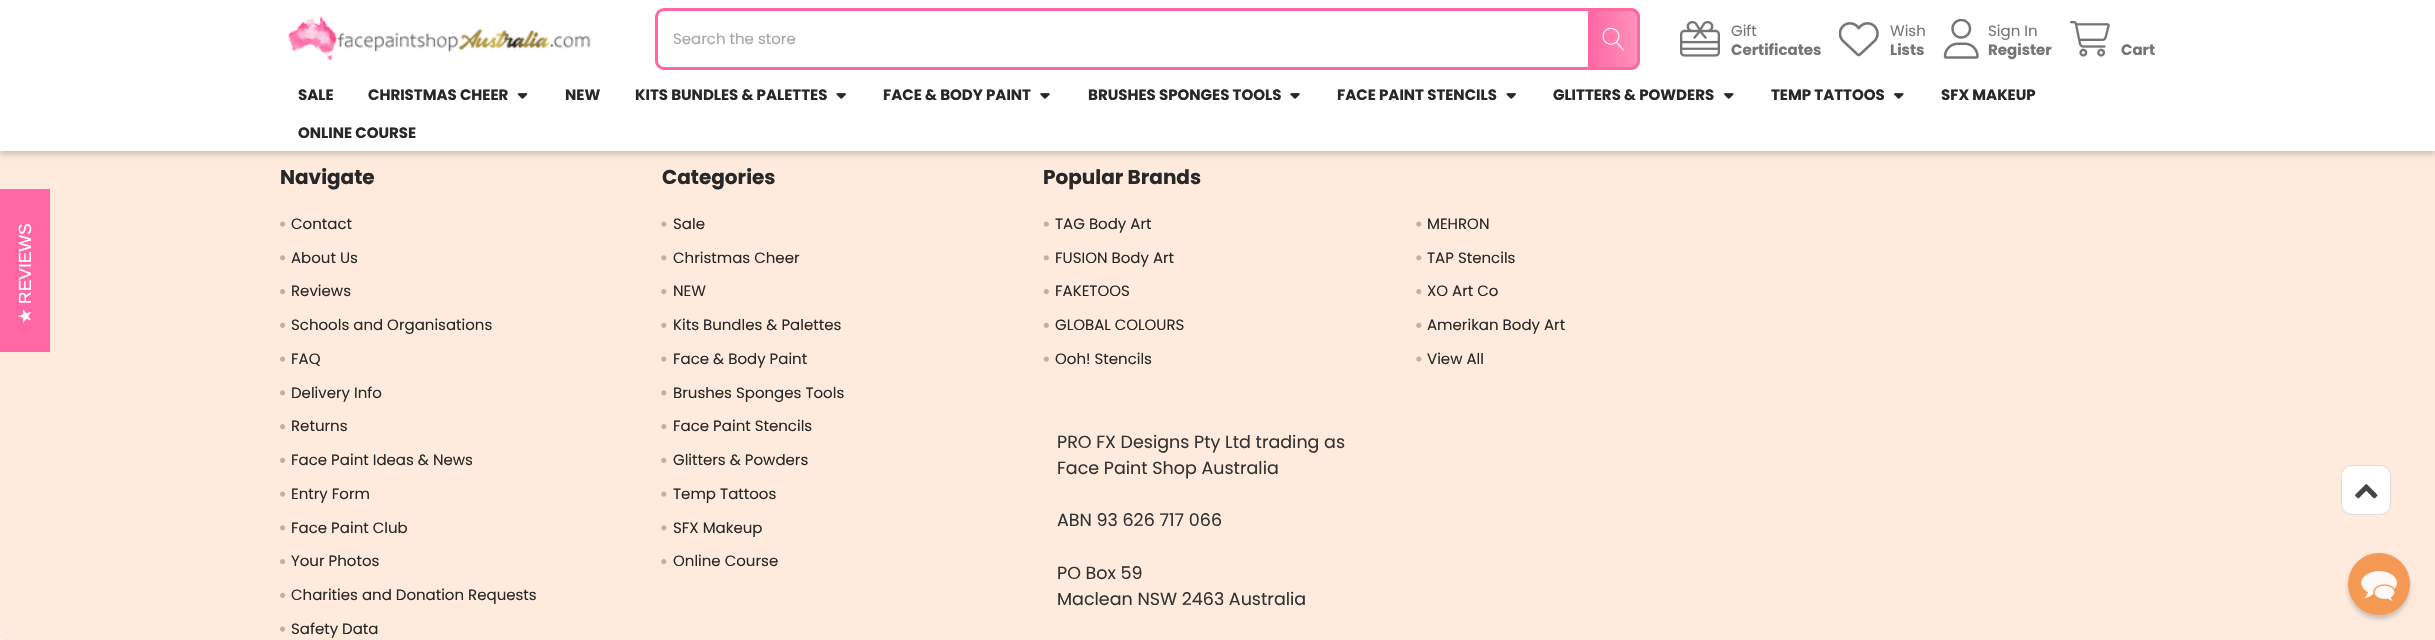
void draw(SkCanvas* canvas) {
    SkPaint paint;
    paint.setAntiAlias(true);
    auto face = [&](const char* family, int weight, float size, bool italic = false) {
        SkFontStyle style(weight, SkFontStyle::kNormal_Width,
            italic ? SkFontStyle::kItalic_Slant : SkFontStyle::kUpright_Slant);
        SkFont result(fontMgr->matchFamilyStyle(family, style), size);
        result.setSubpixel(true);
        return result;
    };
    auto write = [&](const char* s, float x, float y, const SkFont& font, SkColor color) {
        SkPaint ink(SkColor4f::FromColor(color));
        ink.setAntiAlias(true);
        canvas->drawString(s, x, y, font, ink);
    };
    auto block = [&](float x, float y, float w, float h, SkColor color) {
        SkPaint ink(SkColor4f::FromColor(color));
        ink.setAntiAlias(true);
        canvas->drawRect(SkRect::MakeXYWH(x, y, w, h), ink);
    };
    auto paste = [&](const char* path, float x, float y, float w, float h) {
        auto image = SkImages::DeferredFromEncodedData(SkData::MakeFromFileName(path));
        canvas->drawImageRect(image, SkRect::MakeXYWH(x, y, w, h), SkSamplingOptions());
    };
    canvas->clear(SkColorSetRGB(255, 235, 221));
    paint.setColor(SkColorSetARGB(51, 0, 0, 0));
    paint.setMaskFilter(SkMaskFilter::MakeBlur(kNormal_SkBlurStyle, 3));
    canvas->drawRect(SkRect::MakeXYWH(0, 3, 2435, 151), paint);
    paint.setMaskFilter(nullptr);
    block(0, 0, 2435, 151, SK_ColorWHITE);
    paste("pic1.png", 287, 16, 304, 45);
    paint.setStyle(SkPaint::kStroke_Style);
    paint.setStrokeWidth(3);
    paint.setColor(SkColorSetRGB(255, 102, 163));
    canvas->drawRoundRect(SkRect::MakeXYWH(656.5f, 9.5f, 982, 59), 7.5f, 7.5f, paint);
    auto kFont1 = face("Poppins", 400, 15);
    write("Search the store", 673, 44, kFont1, SkColorSetRGB(165, 165, 165));
    paint.setStyle(SkPaint::kFill_Style);
    {
        const SkColor colors[] = {SkColorSetRGB(255, 102, 163), SkColorSetARGB(179, 255, 102, 163)};
        const float stops[] = {0, 1};
        const SkPoint ends[] = {{1588, 39}, {1640, 39}};
        paint.setShader(SkGradientShader::MakeLinear(ends, colors, stops, 2, SkTileMode::kClamp));
        paint.setAlpha(255);
    }
    canvas->drawPath(SkPathBuilder().moveTo(1588, 8).lineTo(1631, 8).cubicTo(1636, 8, 1640, 12, 1640, 17).lineTo(1640, 61).cubicTo(1640, 66, 1636, 70, 1631, 70).lineTo(1588, 70).close().detach(), paint);
    paste("pic2.png", 1602, 27, 22, 24);
    paste("pic3.png", 1680, 20, 40, 37);
    write("Gift", 1731, 36, kFont1, SkColorSetRGB(117, 117, 117));
    auto kFont2 = face("Poppins", 700, 15);
    write("Certificates", 1731, 55, kFont2, SkColorSetRGB(117, 117, 117));
    paste("pic4.png", 1839, 22, 40, 35);
    write("Wish", 1890, 36, kFont1, SkColorSetRGB(117, 117, 117));
    write("Lists", 1890, 55, kFont2, SkColorSetRGB(117, 117, 117));
    paste("pic5.png", 1943, 19, 36, 40);
    write("Sign In", 1988, 36, kFont1, SkColorSetRGB(117, 117, 117));
    write("Register", 1988, 55, kFont2, SkColorSetRGB(117, 117, 117));
    paste("pic6.png", 2070, 20, 40, 37);
    write("Cart", 2121, 55, kFont2, SkColorSetRGB(117, 117, 117));
    write("SALE", 298, 100, kFont2, SkColorSetRGB(40, 40, 40));
    write("CHRISTMAS CHEER", 368, 100, kFont2, SkColorSetRGB(40, 40, 40));
    paste("pic7.png", 517, 93, 11, 6);
    write("NEW", 565, 100, kFont2, SkColorSetRGB(40, 40, 40));
    write("KITS BUNDLES & PALETTES", 635, 100, kFont2, SkColorSetRGB(40, 40, 40));
    paste("pic8.png", 836, 93, 10, 6);
    write("FACE & BODY PAINT", 883, 100, kFont2, SkColorSetRGB(40, 40, 40));
    paste("pic9.png", 1040, 93, 10, 6);
    write("BRUSHES SPONGES TOOLS", 1088, 100, kFont2, SkColorSetRGB(40, 40, 40));
    paste("pic9.png", 1290, 93, 10, 6);
    write("FACE PAINT STENCILS", 1337, 100, kFont2, SkColorSetRGB(40, 40, 40));
    paste("pic8.png", 1506, 93, 10, 6);
    write("GLITTERS & POWDERS", 1553, 100, kFont2, SkColorSetRGB(40, 40, 40));
    paste("pic10.png", 1724, 93, 10, 6);
    write("TEMP TATTOOS", 1771, 100, kFont2, SkColorSetRGB(40, 40, 40));
    paste("pic10.png", 1894, 93, 10, 6);
    write("SFX MAKEUP", 1941, 100, kFont2, SkColorSetRGB(40, 40, 40));
    write("ONLINE COURSE", 298, 138, kFont2, SkColorSetRGB(40, 40, 40));
    block(0, 189, 50, 163, SkColorSetRGB(255, 102, 163));
    auto kFont3 = face("Liberation Sans", 400, 17.5f);
    canvas->save();
    canvas->rotate(-90, 31, 304);
    write("REVIEWS", 31, 304, kFont3, SK_ColorWHITE);
    canvas->restore();
    auto kFont4 = face("DejaVu Sans", 400, 17.5f);
    canvas->save();
    canvas->rotate(-90, 31, 324);
    write("★", 31, 324, kFont4, SK_ColorWHITE);
    canvas->restore();
    auto kFont5 = face("Poppins", 700, 20);
    write("Navigate", 280, 184, kFont5, SkColorSetRGB(40, 40, 40));
    paste("pic11.png", 280, 221, 6, 6);
    write("Contact", 291, 229, kFont1, SkColorSetRGB(40, 40, 40));
    paste("pic12.png", 280, 255, 6, 6);
    write("About Us", 291, 263, kFont1, SkColorSetRGB(40, 40, 40));
    paste("pic13.png", 280, 289, 6, 6);
    write("Reviews", 291, 296, kFont1, SkColorSetRGB(40, 40, 40));
    paste("pic14.png", 280, 322, 6, 6);
    write("Schools and Organisations", 291, 330, kFont1, SkColorSetRGB(40, 40, 40));
    paste("pic11.png", 280, 356, 6, 6);
    write("FAQ", 291, 364, kFont1, SkColorSetRGB(40, 40, 40));
    paste("pic12.png", 280, 390, 6, 6);
    write("Delivery Info", 291, 398, kFont1, SkColorSetRGB(40, 40, 40));
    paste("pic13.png", 280, 424, 6, 6);
    write("Returns", 291, 431, kFont1, SkColorSetRGB(40, 40, 40));
    paste("pic14.png", 280, 457, 6, 6);
    write("Face Paint Ideas & News", 291, 465, kFont1, SkColorSetRGB(40, 40, 40));
    paste("pic11.png", 280, 491, 6, 6);
    write("Entry Form", 291, 499, kFont1, SkColorSetRGB(40, 40, 40));
    paste("pic12.png", 280, 525, 6, 6);
    write("Face Paint Club", 291, 533, kFont1, SkColorSetRGB(40, 40, 40));
    paste("pic13.png", 280, 559, 6, 6);
    write("Your Photos", 291, 566, kFont1, SkColorSetRGB(40, 40, 40));
    paste("pic14.png", 280, 592, 6, 6);
    write("Charities and Donation Requests", 291, 600, kFont1, SkColorSetRGB(40, 40, 40));
    paste("pic11.png", 280, 626, 6, 6);
    write("Safety Data", 291, 634, kFont1, SkColorSetRGB(40, 40, 40));
    write("Categories", 662, 184, kFont5, SkColorSetRGB(40, 40, 40));
    paste("pic15.png", 661, 221, 6, 6);
    write("Sale", 673, 229, kFont1, SkColorSetRGB(40, 40, 40));
    paste("pic16.png", 661, 255, 6, 6);
    write("Christmas Cheer", 673, 263, kFont1, SkColorSetRGB(40, 40, 40));
    paste("pic17.png", 661, 289, 6, 6);
    write("NEW", 673, 296, kFont1, SkColorSetRGB(40, 40, 40));
    paste("pic18.png", 661, 322, 6, 6);
    write("Kits Bundles & Palettes", 673, 330, kFont1, SkColorSetRGB(40, 40, 40));
    paste("pic15.png", 661, 356, 6, 6);
    write("Face & Body Paint", 673, 364, kFont1, SkColorSetRGB(40, 40, 40));
    paste("pic16.png", 661, 390, 6, 6);
    write("Brushes Sponges Tools", 673, 398, kFont1, SkColorSetRGB(40, 40, 40));
    paste("pic17.png", 661, 424, 6, 6);
    write("Face Paint Stencils", 673, 431, kFont1, SkColorSetRGB(40, 40, 40));
    paste("pic18.png", 661, 457, 6, 6);
    write("Glitters & Powders", 673, 465, kFont1, SkColorSetRGB(40, 40, 40));
    paste("pic15.png", 661, 491, 6, 6);
    write("Temp Tattoos", 673, 499, kFont1, SkColorSetRGB(40, 40, 40));
    paste("pic16.png", 661, 525, 6, 6);
    write("SFX Makeup", 673, 533, kFont1, SkColorSetRGB(40, 40, 40));
    paste("pic17.png", 661, 559, 6, 6);
    write("Online Course", 673, 566, kFont1, SkColorSetRGB(40, 40, 40));
    write("Popular Brands", 1043, 184, kFont5, SkColorSetRGB(40, 40, 40));
    paste("pic19.png", 1043, 221, 6, 6);
    write("TAG Body Art", 1055, 229, kFont1, SkColorSetRGB(40, 40, 40));
    paste("pic15.png", 1416, 221, 6, 6);
    write("MEHRON", 1427, 229, kFont1, SkColorSetRGB(40, 40, 40));
    paste("pic20.png", 1043, 255, 6, 6);
    write("FUSION Body Art", 1055, 263, kFont1, SkColorSetRGB(40, 40, 40));
    paste("pic16.png", 1416, 255, 6, 6);
    write("TAP Stencils", 1427, 263, kFont1, SkColorSetRGB(40, 40, 40));
    paste("pic21.png", 1043, 289, 6, 6);
    write("FAKETOOS", 1055, 296, kFont1, SkColorSetRGB(40, 40, 40));
    paste("pic17.png", 1416, 289, 6, 6);
    write("XO Art Co", 1427, 296, kFont1, SkColorSetRGB(40, 40, 40));
    paste("pic22.png", 1043, 322, 6, 6);
    write("GLOBAL COLOURS", 1055, 330, kFont1, SkColorSetRGB(40, 40, 40));
    paste("pic18.png", 1416, 322, 6, 6);
    write("Amerikan Body Art", 1427, 330, kFont1, SkColorSetRGB(40, 40, 40));
    paste("pic19.png", 1043, 356, 6, 6);
    write("Ooh! Stencils", 1055, 364, kFont1, SkColorSetRGB(40, 40, 40));
    paste("pic15.png", 1416, 356, 6, 6);
    write("View All", 1427, 364, kFont1, SkColorSetRGB(40, 40, 40));
    auto kFont6 = face("Poppins", 400, 17.5f);
    write("PRO FX Designs Pty Ltd trading as", 1057, 448, kFont6, SkColorSetRGB(51, 51, 51));
    write("Face Paint Shop Australia", 1057, 474, kFont6, SkColorSetRGB(51, 51, 51));
    write("ABN 93 626 717 066", 1057, 526, kFont6, SkColorSetRGB(51, 51, 51));
    write("PO Box 59", 1057, 579, kFont6, SkColorSetRGB(51, 51, 51));
    write("Maclean NSW 2463 Australia", 1057, 605, kFont6, SkColorSetRGB(51, 51, 51));
    paint.setShader(nullptr);
    paint.setColor(SK_ColorWHITE);
    canvas->drawRoundRect(SkRect::MakeXYWH(2341.5f, 465.5f, 49, 49), 10.5f, 10.5f, paint);
    paint.setStyle(SkPaint::kStroke_Style);
    paint.setStrokeWidth(1);
    paint.setColor(SkColorSetRGB(220, 220, 220));
    canvas->drawRoundRect(SkRect::MakeXYWH(2341.5f, 465.5f, 49, 49), 10.5f, 10.5f, paint);
    paste("pic23.png", 2355, 484, 23, 15);
    paint.setStyle(SkPaint::kFill_Style);
    paint.setColor(SkColorSetARGB(51, 13, 12, 11));
    paint.setMaskFilter(SkMaskFilter::MakeBlur(kNormal_SkBlurStyle, 2));
    canvas->drawRoundRect(SkRect::MakeXYWH(2348, 556, 62, 63), 31, 31, paint);
    paint.setMaskFilter(nullptr);
    paint.setColor(SkColorSetRGB(244, 154, 84));
    canvas->drawCircle(2379, 584, 31, paint);
    paste("pic24.png", 2361, 571, 36, 30);
    block(0, 638, 3, 2, SkColorSetRGB(245, 245, 245));
}
